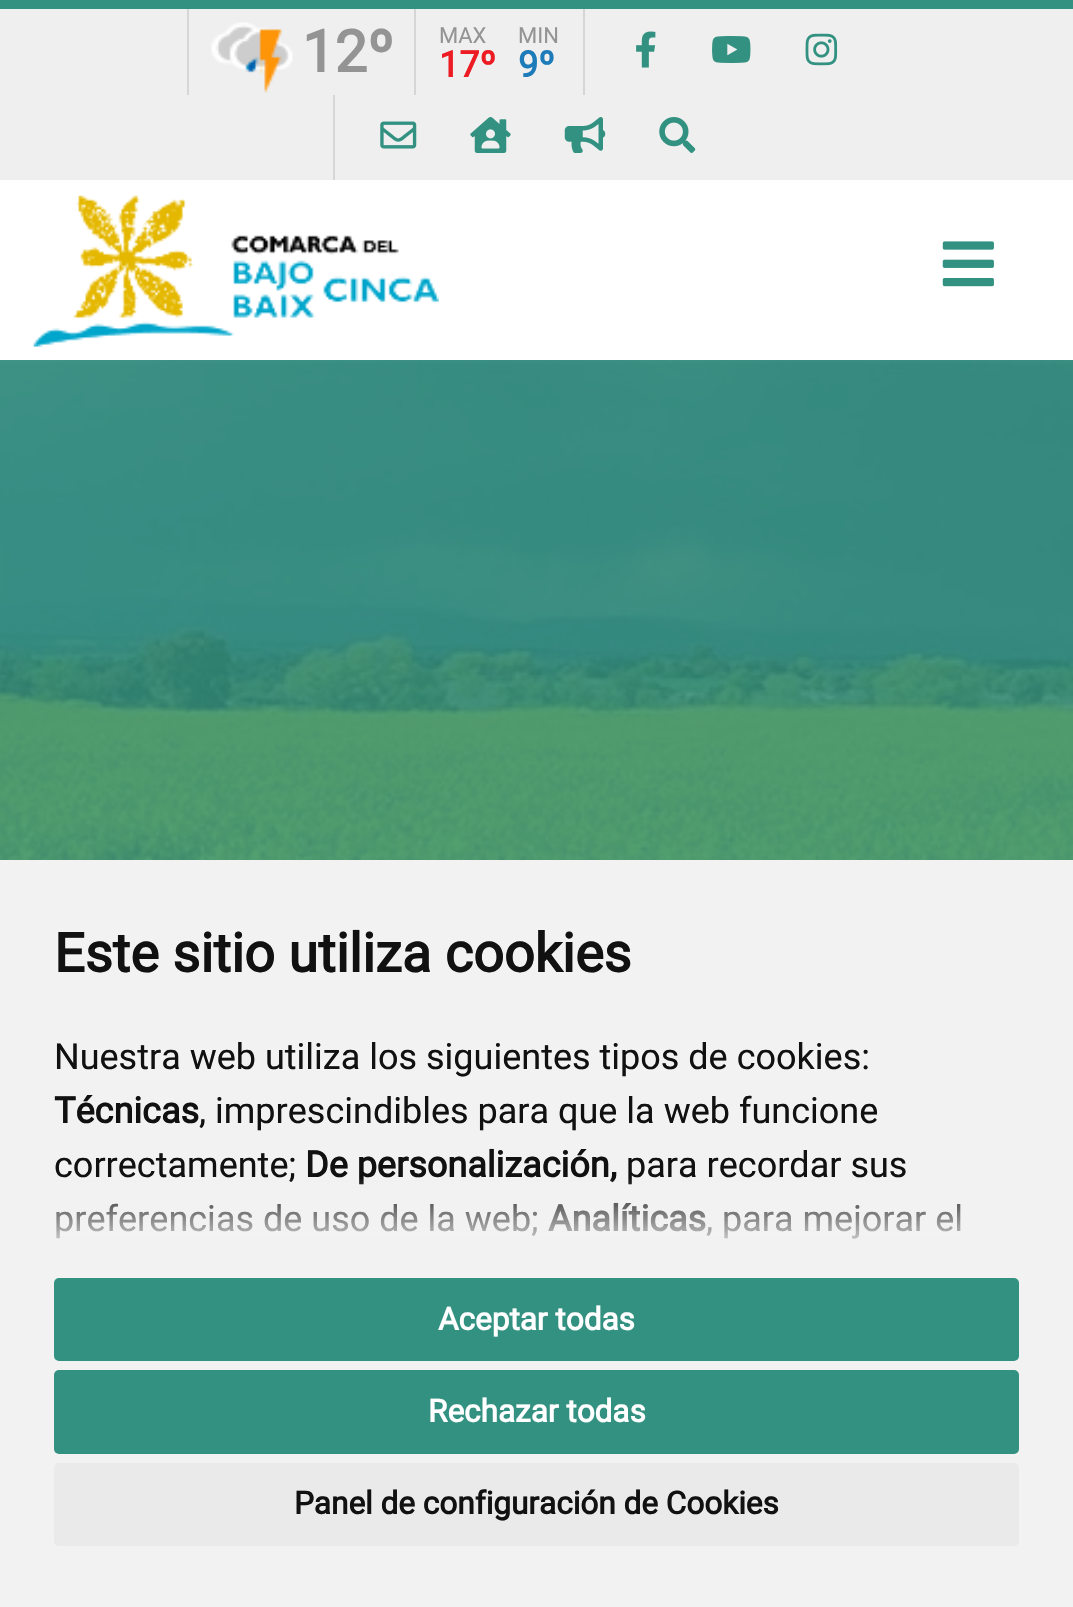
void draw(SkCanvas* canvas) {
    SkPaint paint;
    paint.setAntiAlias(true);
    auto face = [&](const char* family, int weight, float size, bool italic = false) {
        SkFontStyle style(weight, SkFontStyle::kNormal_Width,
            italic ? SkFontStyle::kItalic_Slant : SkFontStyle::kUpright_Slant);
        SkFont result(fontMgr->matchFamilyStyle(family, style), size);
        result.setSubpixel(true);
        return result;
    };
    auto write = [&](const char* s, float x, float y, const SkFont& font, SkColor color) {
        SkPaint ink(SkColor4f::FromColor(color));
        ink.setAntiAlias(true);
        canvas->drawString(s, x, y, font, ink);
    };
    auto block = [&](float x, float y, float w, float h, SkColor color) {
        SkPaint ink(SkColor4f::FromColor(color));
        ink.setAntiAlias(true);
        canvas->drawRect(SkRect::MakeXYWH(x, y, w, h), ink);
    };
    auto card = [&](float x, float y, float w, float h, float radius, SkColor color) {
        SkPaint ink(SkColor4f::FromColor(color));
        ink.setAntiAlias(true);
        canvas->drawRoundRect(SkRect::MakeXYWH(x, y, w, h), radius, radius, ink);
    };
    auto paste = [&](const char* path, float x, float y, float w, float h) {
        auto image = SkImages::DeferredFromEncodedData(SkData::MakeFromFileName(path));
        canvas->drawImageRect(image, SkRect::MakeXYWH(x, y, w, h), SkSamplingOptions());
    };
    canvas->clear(SK_ColorWHITE);
    block(0, 9, 1073, 171, SkColorSetRGB(239, 239, 239));
    block(0, 0, 1073, 9, SkColorSetRGB(50, 145, 128));
    block(187, 9, 2, 86, SkColorSetRGB(214, 214, 214));
    paste("pic1.png", 211, 22, 82, 71);
    auto kFont1 = face("Roboto", 700, 58);
    write("12º", 302, 72, kFont1, SkColorSetRGB(148, 148, 148));
    block(414, 9, 2, 86, SkColorSetRGB(214, 214, 214));
    auto kFont2 = face("Roboto", 400, 22);
    write("MAX", 439, 43, kFont2, SkColorSetRGB(148, 148, 148));
    auto kFont3 = face("Roboto", 700, 36);
    write("17º", 439, 77, kFont3, SkColorSetRGB(237, 28, 36));
    write("MIN", 518, 43, kFont2, SkColorSetRGB(148, 148, 148));
    write("9º", 518, 77, kFont3, SkColorSetRGB(29, 123, 185));
    block(583, 9, 2, 86, SkColorSetRGB(214, 214, 214));
    paste("pic2.png", 636, 31, 20, 37);
    paste("pic3.png", 712, 36, 39, 27);
    paste("pic4.png", 805, 33, 33, 33);
    block(333, 95, 2, 85, SkColorSetRGB(214, 214, 214));
    paste("pic5.png", 380, 121, 37, 28);
    paste("pic6.png", 470, 117, 41, 36);
    paste("pic7.png", 564, 117, 42, 36);
    paste("pic8.png", 659, 117, 37, 36);
    paste("pic9.png", 33, 195, 406, 152);
    paste("pic10.png", 942, 241, 52, 46);
    paste("pic11.png", 0, 360, 1073, 500);
    block(0, 860, 1073, 747, SkColorSetRGB(242, 242, 242));
    auto kFont4 = face("Roboto", 700, 54);
    write("Este sitio utiliza cookies", 54, 972, kFont4, SkColorSetRGB(17, 17, 17));
    auto kFont5 = face("Roboto", 400, 36);
    write("Nuestra web utiliza los siguientes tipos de cookies:", 54, 1069, kFont5, SkColorSetRGB(17, 17, 17));
    write("Técnicas", 54, 1123, kFont3, SkColorSetRGB(17, 17, 17));
    write(", imprescindibles para que la web funcione", 199, 1123, kFont5, SkColorSetRGB(17, 17, 17));
    write("correctamente;", 54, 1177, kFont5, SkColorSetRGB(17, 17, 17));
    write("De personalización,", 305, 1177, kFont3, SkColorSetRGB(17, 17, 17));
    write("para recordar sus", 626, 1177, kFont5, SkColorSetRGB(17, 17, 17));
    write("preferencias de uso de la web;", 54, 1231, kFont5, SkColorSetRGB(17, 17, 17));
    write("Analíticas", 548, 1231, kFont3, SkColorSetRGB(17, 17, 17));
    write(", para mejorar el", 706, 1231, kFont5, SkColorSetRGB(17, 17, 17));
    {
        const SkColor colors[] = {SkColorSetARGB(0, 242, 242, 242), SkColorSetRGB(242, 242, 242)};
        const float stops[] = {0, 1};
        const SkPoint ends[] = {{537, 1177}, {537, 1256}};
        paint.setShader(SkGradientShader::MakeLinear(ends, colors, stops, 2, SkTileMode::kClamp));
        paint.setAlpha(255);
    }
    canvas->drawRect(SkRect::MakeXYWH(56, 1179, 905, 60), paint);
    card(54, 1278, 965, 83, 5, SkColorSetRGB(50, 145, 128));
    auto kFont6 = face("Roboto", 700, 31.5f);
    write("Aceptar todas", 438, 1330, kFont6, SK_ColorWHITE);
    card(54, 1370, 965, 84, 5, SkColorSetRGB(50, 145, 128));
    write("Rechazar todas", 428, 1422, kFont6, SK_ColorWHITE);
    card(54, 1463, 965, 83, 5, SkColorSetRGB(234, 234, 234));
    write("Panel de configuración de Cookies", 294, 1514, kFont6, SkColorSetRGB(17, 17, 17));
}
